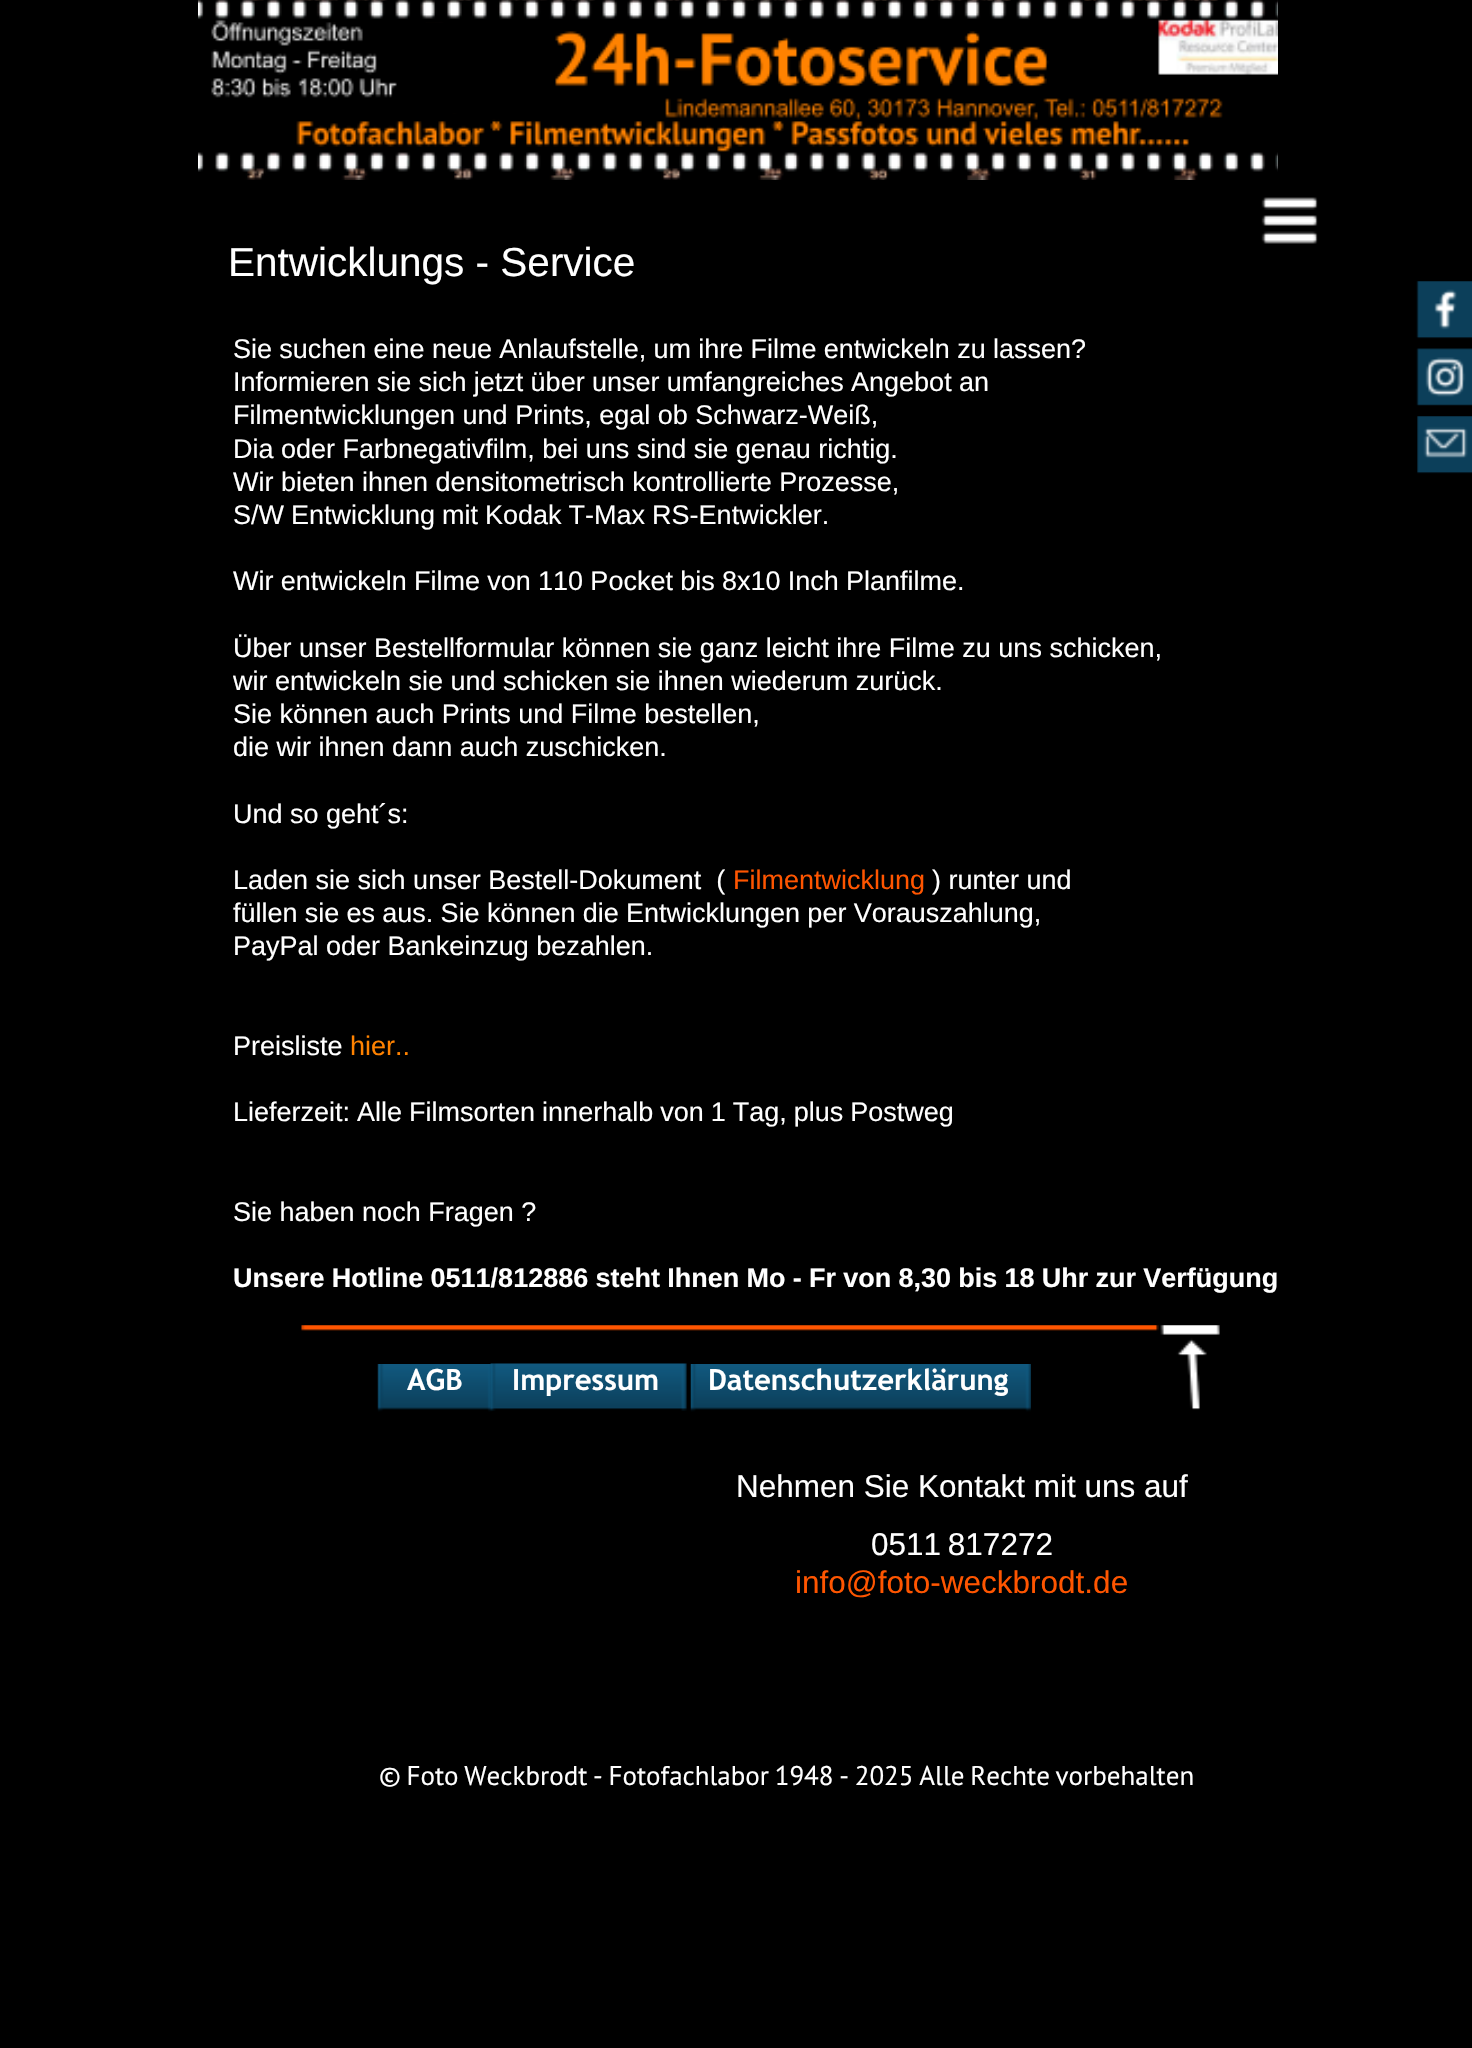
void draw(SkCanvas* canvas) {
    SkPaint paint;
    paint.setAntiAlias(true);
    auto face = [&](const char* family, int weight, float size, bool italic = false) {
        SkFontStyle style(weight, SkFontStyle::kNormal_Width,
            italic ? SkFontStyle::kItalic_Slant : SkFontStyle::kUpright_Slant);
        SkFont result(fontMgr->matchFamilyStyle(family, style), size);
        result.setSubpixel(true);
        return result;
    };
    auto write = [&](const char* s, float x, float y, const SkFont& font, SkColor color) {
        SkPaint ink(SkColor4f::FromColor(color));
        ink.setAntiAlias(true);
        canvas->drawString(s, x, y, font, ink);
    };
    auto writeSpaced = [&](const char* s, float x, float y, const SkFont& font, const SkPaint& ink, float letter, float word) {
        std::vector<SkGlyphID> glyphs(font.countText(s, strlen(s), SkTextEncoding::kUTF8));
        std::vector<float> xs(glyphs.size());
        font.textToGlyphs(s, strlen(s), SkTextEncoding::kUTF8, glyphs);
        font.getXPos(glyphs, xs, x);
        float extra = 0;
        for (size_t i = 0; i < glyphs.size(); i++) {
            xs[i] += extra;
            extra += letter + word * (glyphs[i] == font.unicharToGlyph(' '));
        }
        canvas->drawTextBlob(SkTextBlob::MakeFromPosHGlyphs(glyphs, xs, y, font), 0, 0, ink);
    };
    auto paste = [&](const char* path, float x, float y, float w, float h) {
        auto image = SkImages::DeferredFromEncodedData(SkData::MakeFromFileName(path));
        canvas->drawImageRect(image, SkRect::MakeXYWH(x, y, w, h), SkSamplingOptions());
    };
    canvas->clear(SK_ColorBLACK);
    paste("pic1.png", 198, 0, 1080, 180);
    paste("pic2.png", 424, 23, 628, 90);
    auto kFont1 = face("Liberation Sans", 400, 40.5f);
    write("Entwicklungs - Service", 228, 276, kFont1, SK_ColorWHITE);
    auto kFont2 = face("Liberation Sans", 400, 27);
    paint.setColor(SK_ColorWHITE);
    writeSpaced("Sie suchen eine neue Anlaufstelle, um ihre Filme entwickeln zu lassen?", 233, 358, kFont2, paint, 0, -0.25f);
    writeSpaced("Informieren sie sich jetzt über unser umfangreiches Angebot an", 233, 391, kFont2, paint, 0, -0.25f);
    write("Filmentwicklungen und Prints, egal ob Schwarz-Weiß,", 233, 424, kFont2, SK_ColorWHITE);
    write("Dia oder Farbnegativfilm, bei uns sind sie genau richtig.", 233, 458, kFont2, SK_ColorWHITE);
    write("Wir bieten ihnen densitometrisch kontrollierte Prozesse,", 233, 491, kFont2, SK_ColorWHITE);
    writeSpaced("S/W Entwicklung mit Kodak T-Max RS-Entwickler.", 233, 524, kFont2, paint, 0, -0.5f);
    writeSpaced("Wir entwickeln Filme von 110 Pocket bis 8x10 Inch Planfilme.", 233, 590, kFont2, paint, 0, -0.25f);
    write("Über unser Bestellformular können sie ganz leicht ihre Filme zu uns schicken,", 233, 657, kFont2, SK_ColorWHITE);
    write("wir entwickeln sie und schicken sie ihnen wiederum zurück.", 233, 690, kFont2, SK_ColorWHITE);
    write("Sie können auch Prints und Filme bestellen,", 233, 723, kFont2, SK_ColorWHITE);
    write("die wir ihnen dann auch zuschicken.", 233, 756, kFont2, SK_ColorWHITE);
    write("Und so geht´s:", 233, 823, kFont2, SK_ColorWHITE);
    write("Laden sie sich unser Bestell-Dokument  (", 233, 889, kFont2, SK_ColorWHITE);
    write("Filmentwicklung", 733, 889, kFont2, SkColorSetRGB(255, 85, 0));
    write(") runter und", 932, 889, kFont2, SK_ColorWHITE);
    writeSpaced("füllen sie es aus. Sie können die Entwicklungen per Vorauszahlung,", 233, 922, kFont2, paint, 0, -0.25f);
    write("PayPal oder Bankeinzug bezahlen.", 233, 955, kFont2, SK_ColorWHITE);
    write("Preisliste", 233, 1055, kFont2, SK_ColorWHITE);
    write("hier..", 350, 1055, kFont2, SkColorSetRGB(255, 130, 0));
    writeSpaced("Lieferzeit: Alle Filmsorten innerhalb von 1 Tag, plus Postweg", 233, 1121, kFont2, paint, 0, -0.5f);
    write("Sie haben noch Fragen ?", 233, 1221, kFont2, SK_ColorWHITE);
    auto kFont3 = face("Liberation Sans", 700, 27);
    writeSpaced("Unsere Hotline 0511/812886 steht Ihnen Mo - Fr von 8,30 bis 18 Uhr zur Verfügung", 233, 1287, kFont3, paint, 0, -0.25f);
    paste("pic3.png", 301, 1325, 858, 6);
    paste("pic4.png", 1160, 1325, 60, 85);
    paste("pic5.png", 377, 1364, 117, 48);
    paste("pic6.png", 490, 1363, 197, 48);
    paste("pic7.png", 690, 1364, 341, 48);
    auto kFont4 = face("Trebuchet MS", 700, 29.25f);
    write("AGB", 407, 1390, kFont4, SK_ColorWHITE);
    write("Impressum", 512, 1390, kFont4, SK_ColorWHITE);
    write("Datenschutzerklärung", 708, 1390, kFont4, SK_ColorWHITE);
    auto kFont5 = face("Liberation Sans", 400, 31.5f);
    write("Nehmen Sie Kontakt mit uns auf", 736, 1497, kFont5, SK_ColorWHITE);
    writeSpaced("0511 817272", 871, 1555, kFont5, paint, 0, -2);
    write("info@foto-weckbrodt.de", 795, 1593, kFont5, SkColorSetRGB(255, 85, 0));
    auto kFont6 = face("PT Sans", 400, 27);
    writeSpaced("© Foto Weckbrodt - Fotofachlabor 1948 - 2025 Alle Rechte vorbehalten", 379, 1785, kFont6, paint, 0, -1.5f);
    paste("pic8.png", 1261, 197, 57, 47);
    paste("pic9.png", 1416, 281, 56, 58);
    paste("pic10.png", 1416, 348, 56, 58);
    paste("pic11.png", 1417, 416, 55, 58);
}
